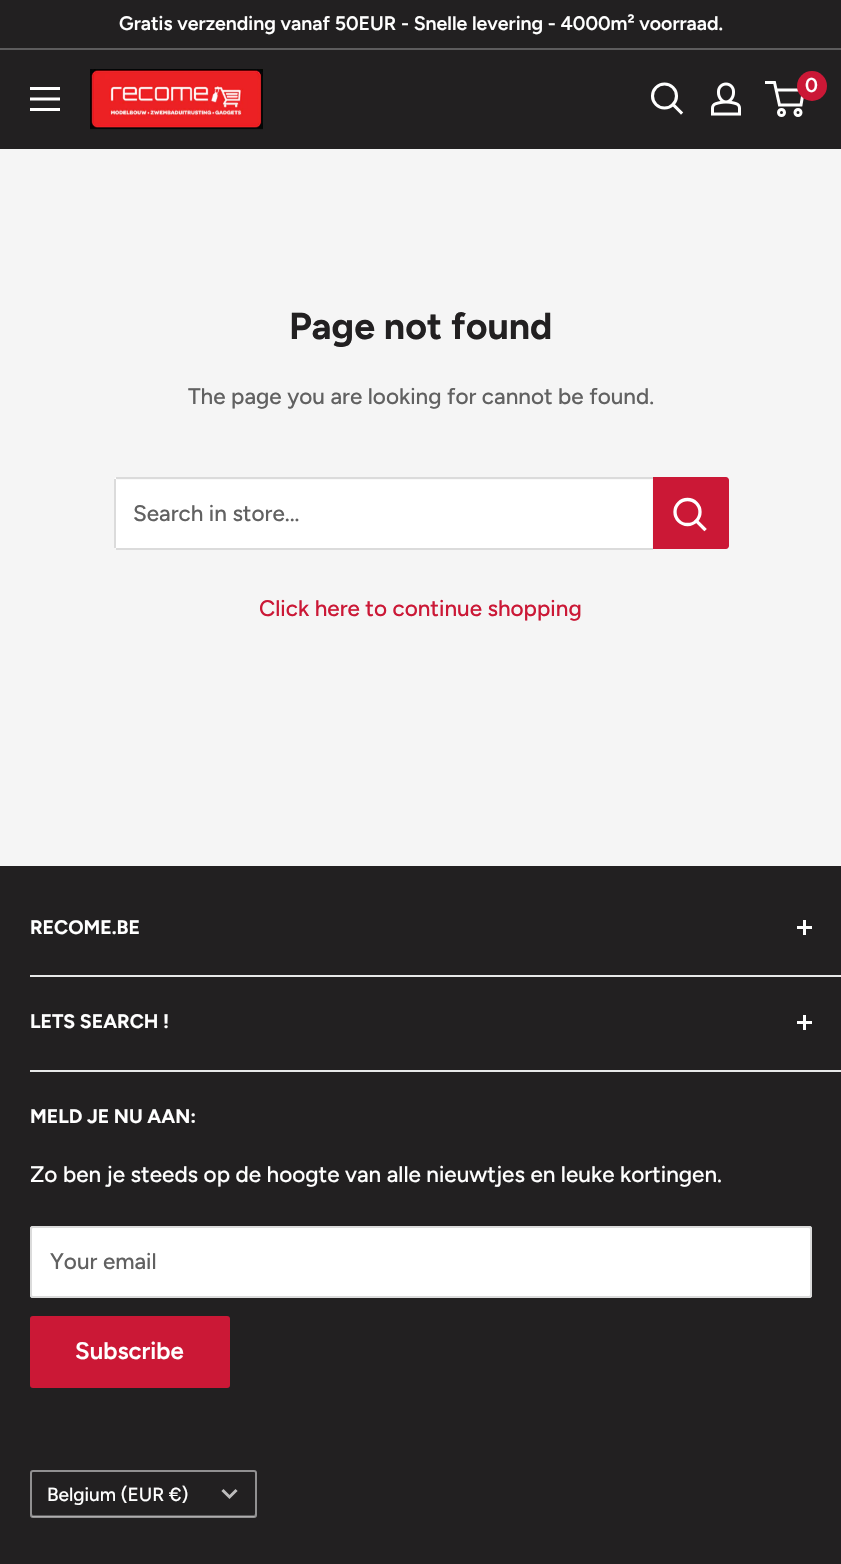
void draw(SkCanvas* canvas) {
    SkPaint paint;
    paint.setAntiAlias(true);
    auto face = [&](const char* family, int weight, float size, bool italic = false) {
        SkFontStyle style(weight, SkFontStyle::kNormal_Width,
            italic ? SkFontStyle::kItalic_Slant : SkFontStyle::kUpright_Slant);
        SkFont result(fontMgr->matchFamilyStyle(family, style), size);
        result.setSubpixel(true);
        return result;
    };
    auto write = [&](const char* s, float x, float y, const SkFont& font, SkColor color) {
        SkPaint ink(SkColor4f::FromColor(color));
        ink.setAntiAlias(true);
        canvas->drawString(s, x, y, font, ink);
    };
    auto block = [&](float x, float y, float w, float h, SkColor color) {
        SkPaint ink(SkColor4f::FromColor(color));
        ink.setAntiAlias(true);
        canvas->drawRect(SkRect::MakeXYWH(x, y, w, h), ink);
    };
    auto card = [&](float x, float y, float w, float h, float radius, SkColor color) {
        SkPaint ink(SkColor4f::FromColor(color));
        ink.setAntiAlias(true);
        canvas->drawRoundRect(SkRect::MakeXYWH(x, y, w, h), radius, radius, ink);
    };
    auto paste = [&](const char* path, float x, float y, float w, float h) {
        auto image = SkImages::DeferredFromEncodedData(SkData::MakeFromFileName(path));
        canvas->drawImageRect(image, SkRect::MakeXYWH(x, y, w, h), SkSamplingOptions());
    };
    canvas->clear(SkColorSetRGB(245, 245, 245));
    block(0, 0, 841, 48, SkColorSetRGB(34, 32, 33));
    block(0, 48, 841, 2, SkColorSetRGB(93, 92, 93));
    auto kFont1 = face("Figtree", 600, 19.5f);
    write("Gratis verzending vanaf 50EUR - Snelle levering - 4000m² voorraad.", 119, 30, kFont1, SK_ColorWHITE);
    block(0, 50, 841, 99, SkColorSetRGB(34, 32, 33));
    paste("pic1.png", 90, 69, 173, 61);
    paint.setStyle(SkPaint::kStroke_Style);
    paint.setStrokeWidth(3.1f);
    paint.setStrokeCap(SkPaint::kSquare_Cap);
    paint.setColor(SK_ColorWHITE);
    canvas->drawPath(SkPathBuilder().moveTo(681, 112.5f).lineTo(673, 104.5f).detach(), paint);
    paint.setStrokeCap(SkPaint::kButt_Cap);
    canvas->drawCircle(664.5f, 96, 12, paint);
    paste("pic2.png", 711, 82, 30, 34);
    paint.setStrokeWidth(3);
    canvas->drawCircle(781.5f, 112.5f, 3, paint);
    canvas->drawCircle(798, 112.5f, 3, paint);
    canvas->drawPath(SkPathBuilder().moveTo(776, 90).lineTo(803.5f, 90).lineTo(801, 105).lineTo(779.5f, 105).lineTo(774.5f, 82.5f).lineTo(765, 82.5f).detach(), paint);
    paint.setStyle(SkPaint::kFill_Style);
    paint.setColor(SkColorSetRGB(203, 24, 54));
    canvas->drawCircle(812, 86, 15, paint);
    auto kFont2 = face("Figtree", 600, 20);
    write("0", 805, 92, kFont2, SK_ColorWHITE);
    paste("pic3.png", 30, 87, 30, 24);
    auto kFont3 = face("Figtree", 700, 37.5f);
    write("Page not found", 289, 339, kFont3, SkColorSetRGB(34, 32, 33));
    auto kFont4 = face("Figtree", 500, 22.5f);
    write("The page you are looking for cannot be found.", 188, 404, kFont4, SkColorSetRGB(97, 97, 97));
    paint.setColor(SK_ColorWHITE);
    canvas->drawPath(SkPathBuilder().moveTo(117, 477).lineTo(653, 477).lineTo(653, 549).lineTo(117, 549).cubicTo(115.5f, 549, 114, 547.5f, 114, 546).lineTo(114, 480).cubicTo(114, 478.5f, 115.5f, 477, 117, 477).close().detach(), paint);
    paint.setColor(SkColorSetRGB(249, 249, 249));
    canvas->drawPath(SkPathBuilder().moveTo(117, 480).lineTo(652, 480).lineTo(652, 548).lineTo(653, 548).lineTo(653, 479).lineTo(118, 479).cubicTo(116, 479, 116, 481, 116, 482).cubicTo(116, 481, 116, 480, 117, 480).close().detach(), paint);
    block(116, 477, 537, 2, SkColorSetRGB(219, 219, 219));
    block(116, 548, 537, 2, SkColorSetRGB(219, 219, 219));
    block(114, 479, 2, 69, SkColorSetRGB(219, 219, 219));
    write("Search in store...", 133, 521, kFont4, SkColorSetRGB(97, 97, 97));
    paint.setColor(SkColorSetRGB(203, 24, 54));
    canvas->drawPath(SkPathBuilder().moveTo(653, 477).lineTo(726, 477).cubicTo(727.5f, 477, 729, 478.5f, 729, 480).lineTo(729, 546).cubicTo(729, 547.5f, 727.5f, 549, 726, 549).lineTo(653, 549).close().detach(), paint);
    paint.setStyle(SkPaint::kStroke_Style);
    paint.setStrokeWidth(3.3f);
    paint.setStrokeCap(SkPaint::kSquare_Cap);
    paint.setColor(SK_ColorWHITE);
    canvas->drawPath(SkPathBuilder().moveTo(704.5f, 529).lineTo(696.5f, 521).detach(), paint);
    paint.setStrokeCap(SkPaint::kButt_Cap);
    canvas->drawCircle(687.5f, 512, 12.5f, paint);
    write("Click here to continue shopping", 259, 616, kFont4, SkColorSetRGB(203, 24, 54));
    block(0, 866, 841, 698, SkColorSetRGB(34, 32, 33));
    block(30, 975, 811, 2, SkColorSetRGB(232, 232, 232));
    auto kFont5 = face("Figtree", 700, 19.5f);
    write("RECOME.BE", 30, 934, kFont5, SK_ColorWHITE);
    block(803, 920, 3, 15, SK_ColorWHITE);
    block(797, 926, 15, 3, SK_ColorWHITE);
    block(30, 1070, 811, 2, SkColorSetRGB(232, 232, 232));
    write("LETS SEARCH !", 30, 1028, kFont5, SK_ColorWHITE);
    block(803, 1015, 3, 15, SK_ColorWHITE);
    block(797, 1021, 15, 3, SK_ColorWHITE);
    write("MELD JE NU AAN:", 30, 1123, kFont5, SK_ColorWHITE);
    write("Zo ben je steeds op de hoogte van alle nieuwtjes en leuke kortingen.", 30, 1182, kFont4, SK_ColorWHITE);
    card(30, 1226, 782, 72, 3, SK_ColorWHITE);
    paint.setStyle(SkPaint::kFill_Style);
    paint.setColor(SkColorSetRGB(249, 249, 249));
    canvas->drawPath(SkPathBuilder().moveTo(33, 1228).lineTo(808, 1228).cubicTo(809, 1228, 810, 1229, 810, 1230).cubicTo(810, 1229, 810, 1227, 808, 1227).lineTo(34, 1227).lineTo(32, 1228).lineTo(32, 1230).cubicTo(32, 1229, 32, 1228, 33, 1228).close().detach(), paint);
    paint.setStyle(SkPaint::kStroke_Style);
    paint.setStrokeWidth(2);
    paint.setColor(SkColorSetRGB(219, 219, 219));
    canvas->drawRoundRect(SkRect::MakeXYWH(31, 1227, 780, 70), 2, 2, paint);
    write("Your email", 50, 1269, kFont4, SkColorSetRGB(97, 97, 97));
    card(30, 1316, 200, 72, 3, SkColorSetRGB(203, 24, 54));
    auto kFont6 = face("Figtree", 600, 24);
    write("Subscribe", 75, 1359, kFont6, SK_ColorWHITE);
    paint.setStyle(SkPaint::kFill_Style);
    paint.setColor(SkColorSetRGB(93, 92, 93));
    canvas->drawPath(SkPathBuilder().moveTo(32, 1514).lineTo(32, 1517).lineTo(34, 1517).lineTo(254, 1517).cubicTo(255, 1517, 255, 1515, 255, 1514).lineTo(254, 1515).lineTo(33, 1515).close().detach(), paint);
    paint.setStyle(SkPaint::kStroke_Style);
    paint.setColor(SkColorSetARGB(128, 255, 255, 255));
    canvas->drawRoundRect(SkRect::MakeXYWH(31, 1471, 225, 46), 2, 2, paint);
    auto kFont7 = face("Figtree", 500, 19);
    write("Belgium (EUR €)", 47, 1501, kFont7, SK_ColorWHITE);
    paint.setStrokeWidth(3);
    paint.setStrokeCap(SkPaint::kSquare_Cap);
    paint.setColor(SkColorSetRGB(189, 188, 188));
    canvas->drawPath(SkPathBuilder().moveTo(235.5f, 1491).lineTo(229.5f, 1497).lineTo(223.5f, 1491).detach(), paint);
}
